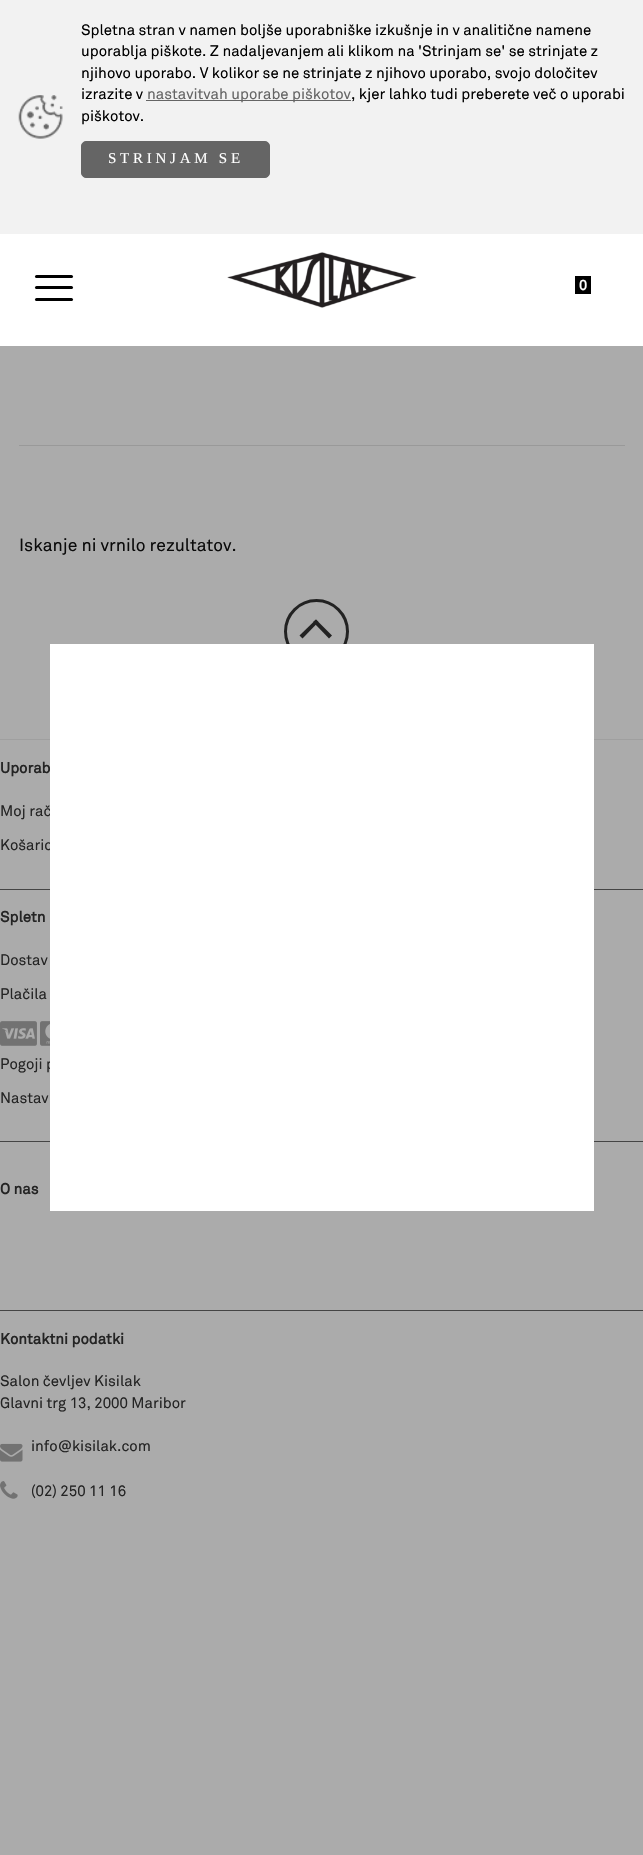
void draw(SkCanvas* canvas) {
    SkPaint paint;
    paint.setAntiAlias(true);
    auto face = [&](const char* family, int weight, float size, bool italic = false) {
        SkFontStyle style(weight, SkFontStyle::kNormal_Width,
            italic ? SkFontStyle::kItalic_Slant : SkFontStyle::kUpright_Slant);
        SkFont result(fontMgr->matchFamilyStyle(family, style), size);
        result.setSubpixel(true);
        return result;
    };
    auto write = [&](const char* s, float x, float y, const SkFont& font, SkColor color) {
        SkPaint ink(SkColor4f::FromColor(color));
        ink.setAntiAlias(true);
        canvas->drawString(s, x, y, font, ink);
    };
    auto writeSpaced = [&](const char* s, float x, float y, const SkFont& font, const SkPaint& ink, float letter, float word) {
        std::vector<SkGlyphID> glyphs(font.countText(s, strlen(s), SkTextEncoding::kUTF8));
        std::vector<float> xs(glyphs.size());
        font.textToGlyphs(s, strlen(s), SkTextEncoding::kUTF8, glyphs);
        font.getXPos(glyphs, xs, x);
        float extra = 0;
        for (size_t i = 0; i < glyphs.size(); i++) {
            xs[i] += extra;
            extra += letter + word * (glyphs[i] == font.unicharToGlyph(' '));
        }
        canvas->drawTextBlob(SkTextBlob::MakeFromPosHGlyphs(glyphs, xs, y, font), 0, 0, ink);
    };
    auto block = [&](float x, float y, float w, float h, SkColor color) {
        SkPaint ink(SkColor4f::FromColor(color));
        ink.setAntiAlias(true);
        canvas->drawRect(SkRect::MakeXYWH(x, y, w, h), ink);
    };
    auto card = [&](float x, float y, float w, float h, float radius, SkColor color) {
        SkPaint ink(SkColor4f::FromColor(color));
        ink.setAntiAlias(true);
        canvas->drawRoundRect(SkRect::MakeXYWH(x, y, w, h), radius, radius, ink);
    };
    auto paste = [&](const char* path, float x, float y, float w, float h) {
        auto image = SkImages::DeferredFromEncodedData(SkData::MakeFromFileName(path));
        canvas->drawImageRect(image, SkRect::MakeXYWH(x, y, w, h), SkSamplingOptions());
    };
    canvas->clear(SkColorSetRGB(171, 171, 171));
    block(0, 0, 643, 234, SkColorSetRGB(242, 242, 242));
    paste("pic1.png", 18, 95, 45, 44);
    auto kFont1 = face("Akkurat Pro", 400, 15);
    write("Spletna stran v namen boljše uporabniške izkušnje in v analitične namene", 81, 35, kFont1, SK_ColorBLACK);
    write("uporablja piškote. Z nadaljevanjem ali klikom na 'Strinjam se' se strinjate z", 81, 56, kFont1, SK_ColorBLACK);
    write("njihovo uporabo. V kolikor se ne strinjate z njihovo uporabo, svojo določitev", 81, 78, kFont1, SK_ColorBLACK);
    write("izrazite v", 81, 99, kFont1, SK_ColorBLACK);
    block(146, 100, 205, 1, SkColorSetRGB(101, 101, 101));
    write("nastavitvah uporabe piškotov", 147, 99, kFont1, SkColorSetRGB(101, 101, 101));
    write(", kjer lahko tudi preberete več o uporabi", 351, 99, kFont1, SK_ColorBLACK);
    write("piškotov.", 81, 121, kFont1, SK_ColorBLACK);
    paint.setColor(SkColorSetRGB(101, 101, 101));
    canvas->drawRoundRect(SkRect::MakeXYWH(81.5f, 141.5f, 188, 36), 4.5f, 4.5f, paint);
    paint.setStyle(SkPaint::kStroke_Style);
    paint.setStrokeWidth(1);
    canvas->drawRoundRect(SkRect::MakeXYWH(81.5f, 141.5f, 188, 36), 4.5f, 4.5f, paint);
    auto kFont2 = face("Liberation Serif", 400, 15);
    paint.setStyle(SkPaint::kFill_Style);
    paint.setColor(SK_ColorWHITE);
    writeSpaced("STRINJAM SE", 108, 163, kFont2, paint, 3.75f, 0);
    block(0, 234, 643, 112, SK_ColorWHITE);
    card(35, 275, 38, 3, 1.5f, SK_ColorBLACK);
    card(35, 286, 38, 3, 1.5f, SK_ColorBLACK);
    card(35, 298, 38, 3, 1.5f, SK_ColorBLACK);
    paste("pic2.png", 227, 252, 190, 56);
    block(575, 276, 16, 18, SK_ColorBLACK);
    auto kFont3 = face("Akkurat Pro", 700, 14);
    write("0", 579, 290, kFont3, SK_ColorWHITE);
    block(19, 445, 606, 1, SkColorSetRGB(153, 153, 153));
    auto kFont4 = face("Akkurat Pro", 400, 17.5f);
    write("Iskanje ni vrnilo rezultatov.", 19, 551, kFont4, SkColorSetRGB(11, 11, 11));
    paint.setStyle(SkPaint::kStroke_Style);
    paint.setStrokeWidth(3);
    paint.setColor(SkColorSetRGB(34, 34, 34));
    canvas->drawCircle(316.5f, 631.5f, 31, paint);
    paint.setStyle(SkPaint::kFill_Style);
    canvas->drawPath(SkPathBuilder().moveTo(299.5f, 635.5f).lineTo(316, 619.5f).lineTo(318.5f, 622).lineTo(302.5f, 638.5f).close().detach(), paint);
    canvas->drawPath(SkPathBuilder().moveTo(313, 622).lineTo(316, 619.5f).lineTo(332, 635.5f).lineTo(329, 638.5f).close().detach(), paint);
    block(0, 739, 643, 1, SkColorSetRGB(159, 159, 159));
    block(0, 889, 643, 1, SkColorSetRGB(68, 68, 68));
    auto kFont5 = face("Akkurat Pro", 700, 15);
    write("Uporab", 0, 773, kFont5, SkColorSetRGB(36, 36, 36));
    write("Moj rač", 0, 816, kFont1, SkColorSetRGB(36, 36, 36));
    write("Košaric", 0, 850, kFont1, SkColorSetRGB(36, 36, 36));
    block(0, 1141, 643, 1, SkColorSetRGB(68, 68, 68));
    write("Spletn", 0, 922, kFont5, SkColorSetRGB(36, 36, 36));
    write("Dostav", 0, 965, kFont1, SkColorSetRGB(36, 36, 36));
    write("Plačila", 0, 999, kFont1, SkColorSetRGB(36, 36, 36));
    paste("pic3.png", 0, 1021, 37, 25);
    paste("pic4.png", 40, 1021, 10, 25);
    write("Pogoji p", 0, 1069, kFont1, SkColorSetRGB(36, 36, 36));
    write("Nastav", 0, 1103, kFont1, SkColorSetRGB(36, 36, 36));
    block(0, 1310, 643, 1, SkColorSetRGB(68, 68, 68));
    write("O nas", 0, 1194, kFont5, SkColorSetRGB(36, 36, 36));
    write("Kontaktni podatki", 0, 1344, kFont5, SkColorSetRGB(36, 36, 36));
    write("Salon čevljev Kisilak", 0, 1386, kFont1, SkColorSetRGB(36, 36, 36));
    write("Glavni trg 13, 2000 Maribor", 0, 1408, kFont1, SkColorSetRGB(36, 36, 36));
    paste("pic5.png", 0, 1443, 23, 19);
    write("info@kisilak.com", 31, 1451, kFont1, SkColorSetRGB(36, 36, 36));
    paste("pic6.png", 0, 1481, 18, 18);
    write("(02) 250 11 16", 31, 1496, kFont1, SkColorSetRGB(36, 36, 36));
    block(50, 644, 544, 567, SK_ColorWHITE);
}
